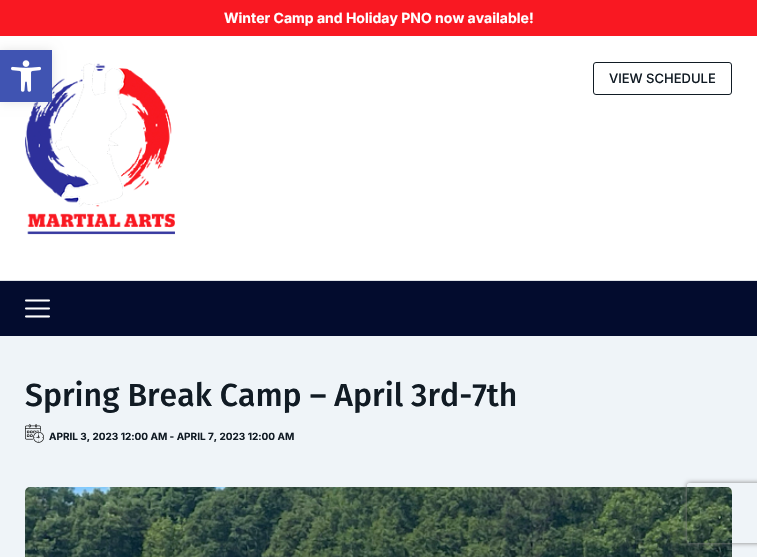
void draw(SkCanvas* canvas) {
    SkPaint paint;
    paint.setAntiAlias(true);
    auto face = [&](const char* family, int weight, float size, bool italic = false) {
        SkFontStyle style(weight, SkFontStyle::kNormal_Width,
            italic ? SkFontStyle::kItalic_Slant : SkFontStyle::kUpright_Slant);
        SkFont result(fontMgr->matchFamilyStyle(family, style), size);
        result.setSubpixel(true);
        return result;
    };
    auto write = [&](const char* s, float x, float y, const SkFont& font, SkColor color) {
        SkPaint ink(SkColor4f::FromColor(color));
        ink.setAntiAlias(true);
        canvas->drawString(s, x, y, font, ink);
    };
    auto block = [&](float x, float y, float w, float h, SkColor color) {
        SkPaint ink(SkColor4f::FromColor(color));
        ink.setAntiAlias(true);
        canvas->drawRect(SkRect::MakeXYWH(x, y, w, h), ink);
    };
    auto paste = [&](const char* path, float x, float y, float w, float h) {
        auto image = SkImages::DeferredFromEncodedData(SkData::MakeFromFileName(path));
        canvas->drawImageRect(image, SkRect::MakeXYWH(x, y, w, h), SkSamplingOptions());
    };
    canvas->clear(SkColorSetRGB(239, 244, 248));
    block(0, 0, 757, 36, SkColorSetRGB(249, 24, 34));
    auto kFont1 = face("Inter", 700, 14);
    write("Winter Camp and Holiday PNO now available!", 224, 23, kFont1, SK_ColorWHITE);
    block(0, 36, 757, 244, SK_ColorWHITE);
    paste("pic2.png", 25, 63, 150, 172);
    paint.setColor(SkColorSetARGB(26, 0, 0, 0));
    paint.setMaskFilter(SkMaskFilter::MakeBlur(kNormal_SkBlurStyle, 5));
    canvas->drawRect(SkRect::MakeXYWH(0, 50, 52, 52), paint);
    paint.setMaskFilter(nullptr);
    block(0, 50, 52, 52, SkColorSetRGB(64, 84, 178));
    paste("pic1.png", 11, 60, 30, 32);
    block(0, 280, 757, 1, SkColorSetRGB(222, 226, 230));
    paint.setStyle(SkPaint::kStroke_Style);
    paint.setStrokeWidth(1);
    paint.setColor(SkColorSetRGB(17, 27, 36));
    canvas->drawRoundRect(SkRect::MakeXYWH(593.5f, 62.5f, 138, 32), 2.5f, 2.5f, paint);
    auto kFont2 = face("Inter", 500, 13);
    write("VIEW SCHEDULE", 609, 83, kFont2, SkColorSetRGB(17, 27, 36));
    block(0, 281, 757, 55, SkColorSetRGB(3, 12, 46));
    paste("pic3.png", 25, 299, 25, 19);
    auto kFont3 = face("Fira Sans", 500, 32);
    write("Spring Break Camp – April 3rd-7th", 25, 406, kFont3, SkColorSetRGB(17, 27, 36));
    paste("pic4.png", 25, 424, 19, 19);
    auto kFont4 = face("Inter", 700, 10);
    write("APRIL 3, 2023 12:00 AM - APRIL 7, 2023 12:00 AM", 49, 440, kFont4, SkColorSetRGB(17, 27, 36));
    paste("pic5.png", 25, 487, 707, 70);
    canvas->save();
    canvas->clipPath(SkPathBuilder(SkPathFillType::kEvenOdd).moveTo(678, 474).lineTo(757, 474).lineTo(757, 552).lineTo(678, 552).close().moveTo(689, 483).lineTo(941, 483).cubicTo(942, 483, 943, 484, 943, 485).lineTo(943, 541).cubicTo(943, 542, 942, 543, 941, 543).lineTo(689, 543).cubicTo(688, 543, 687, 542, 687, 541).lineTo(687, 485).cubicTo(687, 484, 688, 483, 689, 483).close().detach(), true);
    paint.setStyle(SkPaint::kFill_Style);
    paint.setColor(SkColorSetRGB(128, 128, 128));
    paint.setMaskFilter(SkMaskFilter::MakeBlur(kNormal_SkBlurStyle, 2.5f));
    canvas->drawRoundRect(SkRect::MakeXYWH(687, 483, 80, 60), 2, 2, paint);
    paint.setMaskFilter(nullptr);
    canvas->restore();
}
